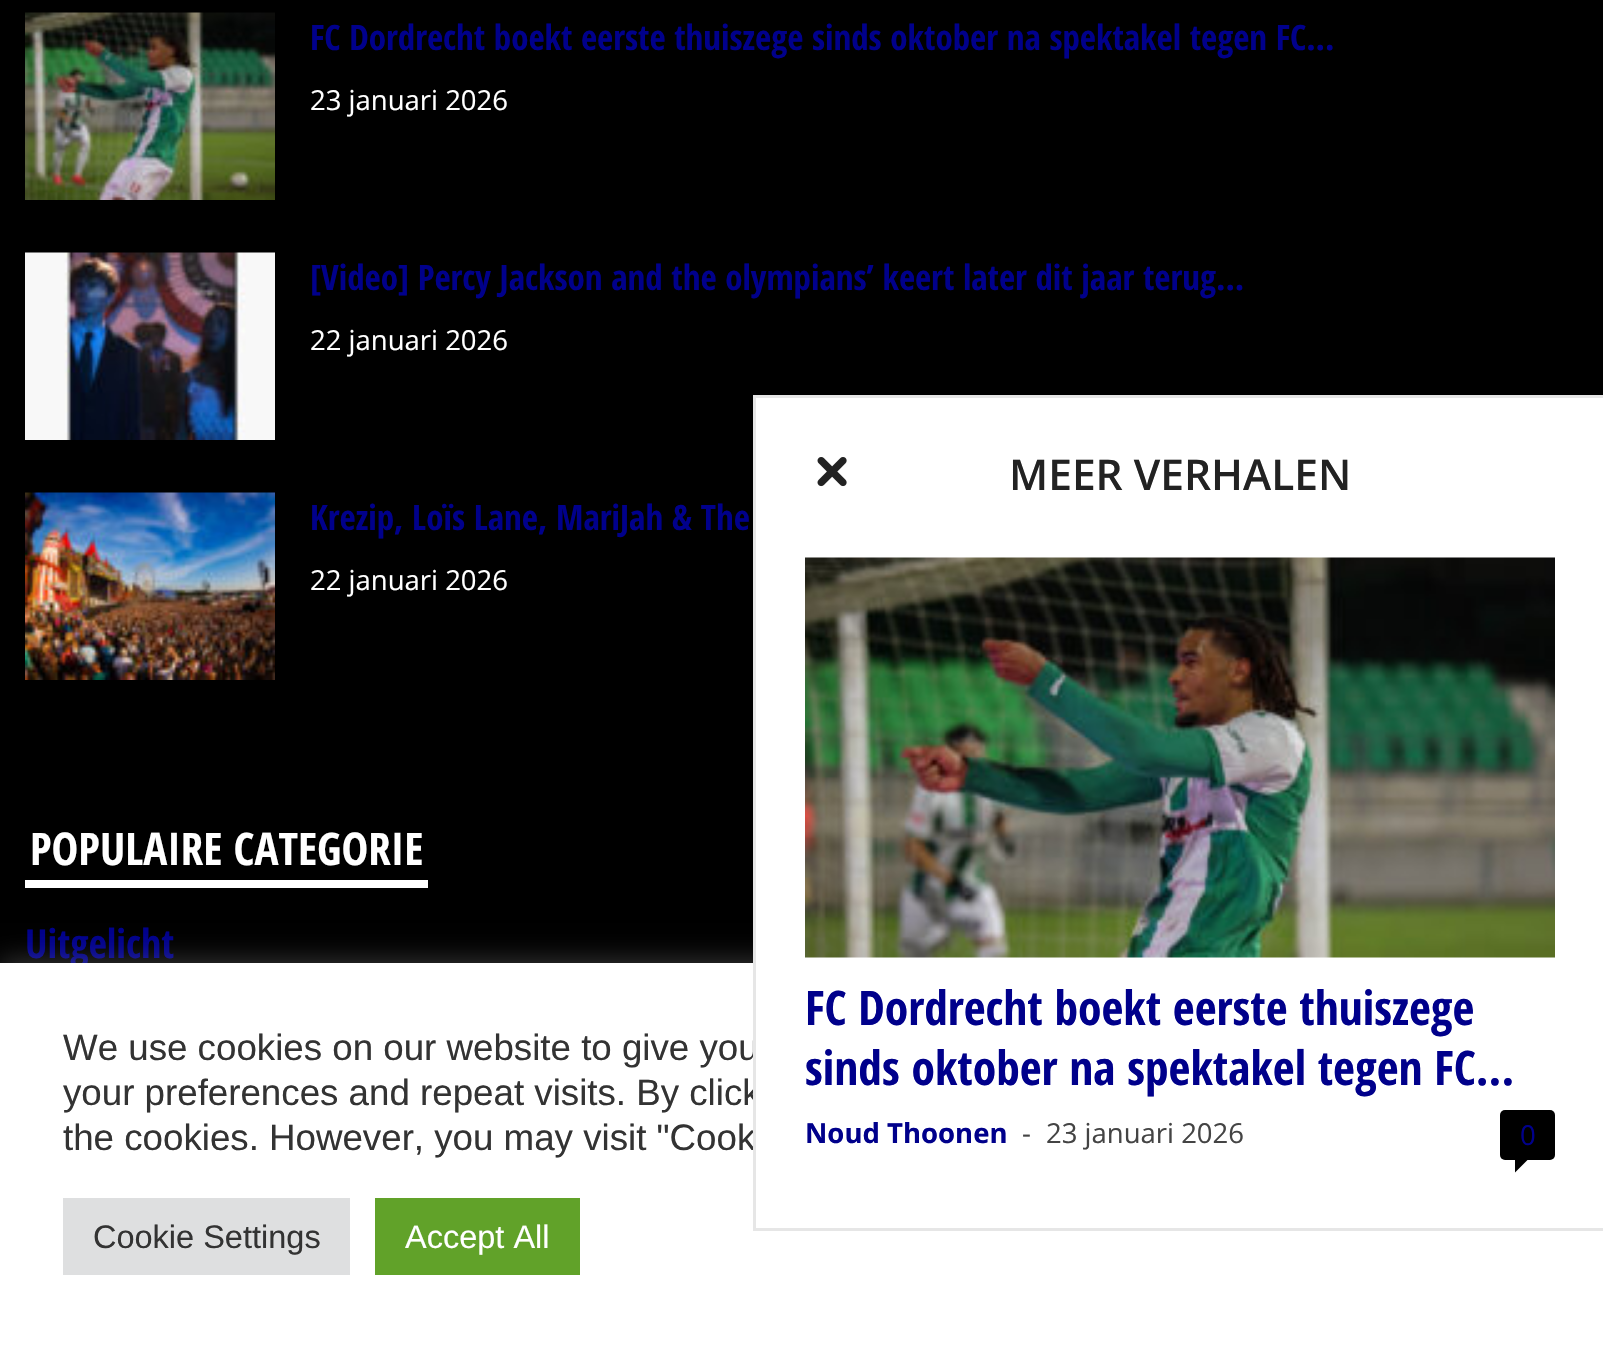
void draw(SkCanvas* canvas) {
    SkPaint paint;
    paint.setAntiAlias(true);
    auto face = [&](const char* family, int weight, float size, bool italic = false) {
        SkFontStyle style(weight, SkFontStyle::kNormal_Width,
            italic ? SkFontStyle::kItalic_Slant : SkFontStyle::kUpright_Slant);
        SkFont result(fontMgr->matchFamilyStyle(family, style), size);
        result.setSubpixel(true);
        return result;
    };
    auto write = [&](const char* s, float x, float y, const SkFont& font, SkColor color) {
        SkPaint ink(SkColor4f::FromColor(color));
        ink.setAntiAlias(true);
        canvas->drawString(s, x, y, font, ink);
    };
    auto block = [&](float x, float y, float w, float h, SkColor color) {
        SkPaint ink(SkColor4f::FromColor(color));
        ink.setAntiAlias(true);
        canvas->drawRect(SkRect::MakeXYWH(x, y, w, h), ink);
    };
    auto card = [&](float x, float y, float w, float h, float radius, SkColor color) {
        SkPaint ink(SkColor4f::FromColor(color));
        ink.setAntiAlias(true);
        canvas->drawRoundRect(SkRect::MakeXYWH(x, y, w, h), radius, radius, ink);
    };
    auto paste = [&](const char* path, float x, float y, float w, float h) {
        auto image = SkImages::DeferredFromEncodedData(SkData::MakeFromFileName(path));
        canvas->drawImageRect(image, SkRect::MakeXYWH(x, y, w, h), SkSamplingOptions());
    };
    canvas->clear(SK_ColorBLACK);
    paste("pic1.png", 25, 12, 250, 188);
    auto kFont1 = face("Open Sans Condensed", 700, 35);
    write("FC Dordrecht boekt eerste thuiszege sinds oktober na spektakel tegen FC...", 310, 50, kFont1, SkColorSetRGB(0, 0, 139));
    auto kFont2 = face("Open Sans", 400, 27.5f);
    write("23 januari 2026", 310, 110, kFont2, SK_ColorWHITE);
    paste("pic2.png", 25, 252, 250, 188);
    write("[Video] Percy Jackson and the olympians’ keert later dit jaar terug...", 310, 290, kFont1, SkColorSetRGB(0, 0, 139));
    write("22 januari 2026", 310, 350, kFont2, SK_ColorWHITE);
    paste("pic3.png", 25, 492, 250, 188);
    write("Krezip, Loïs Lane, MariJah & The", 310, 530, kFont1, SkColorSetRGB(0, 0, 139));
    write("22 januari 2026", 310, 590, kFont2, SK_ColorWHITE);
    block(25, 880, 403, 8, SK_ColorWHITE);
    auto kFont3 = face("Open Sans Condensed", 700, 45);
    write("POPULAIRE CATEGORIE", 30, 865, kFont3, SK_ColorWHITE);
    auto kFont4 = face("Open Sans Condensed", 700, 40);
    write("Uitgelicht", 25, 958, kFont4, SkColorSetRGB(0, 0, 139));
    paint.setColor(SkColorSetARGB(77, 172, 171, 171));
    paint.setMaskFilter(SkMaskFilter::MakeBlur(kNormal_SkBlurStyle, 12.5f));
    canvas->drawRect(SkRect::MakeXYWH(0, 960, 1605, 388), paint);
    paint.setMaskFilter(nullptr);
    block(0, 963, 1603, 385, SK_ColorWHITE);
    auto kFont5 = face("Liberation Sans", 400, 36.7f);
    write("We use cookies on our website to give you", 63, 1060, kFont5, SkColorSetRGB(51, 51, 51));
    write("your preferences and repeat visits. By click", 63, 1105, kFont5, SkColorSetRGB(51, 51, 51));
    write("the cookies. However, you may visit \"Cook", 63, 1150, kFont5, SkColorSetRGB(51, 51, 51));
    block(63, 1198, 287, 77, SkColorSetRGB(222, 223, 224));
    auto kFont6 = face("Liberation Sans", 400, 32.5f);
    write("Cookie Settings", 93, 1248, kFont6, SkColorSetRGB(51, 51, 51));
    block(375, 1198, 205, 77, SkColorSetRGB(97, 162, 41));
    write("Accept All", 405, 1248, kFont6, SK_ColorWHITE);
    block(756, 398, 847, 707, SK_ColorWHITE);
    block(753, 395, 850, 3, SkColorSetRGB(230, 230, 230));
    block(753, 1228, 850, 3, SkColorSetRGB(230, 230, 230));
    block(753, 395, 3, 835, SkColorSetRGB(230, 230, 230));
    paste("pic4.png", 817, 457, 30, 30);
    auto kFont7 = face("Open Sans", 600, 42.5f);
    write("MEER VERHALEN", 1009, 490, kFont7, SkColorSetRGB(34, 34, 34));
    paste("pic5.png", 805, 557, 750, 401);
    auto kFont8 = face("Open Sans Condensed", 700, 47.5f);
    write("FC Dordrecht boekt eerste thuiszege", 805, 1025, kFont8, SkColorSetRGB(0, 0, 139));
    write("sinds oktober na spektakel tegen FC...", 805, 1085, kFont8, SkColorSetRGB(0, 0, 139));
    auto kFont9 = face("Open Sans", 700, 27.5f);
    write("Noud Thoonen", 805, 1143, kFont9, SkColorSetRGB(0, 0, 139));
    write("-", 1022, 1143, kFont2, SkColorSetRGB(68, 68, 68));
    write("23 januari 2026", 1046, 1143, kFont2, SkColorSetRGB(68, 68, 68));
    card(1500, 1110, 55, 50, 5, SK_ColorBLACK);
    write("0", 1520, 1145, kFont2, SkColorSetRGB(0, 0, 139));
    paint.setColor(SK_ColorBLACK);
    canvas->drawPath(SkPathBuilder().moveTo(1515, 1160).lineTo(1527.5f, 1160).lineTo(1515, 1172.5f).close().detach(), paint);
}
